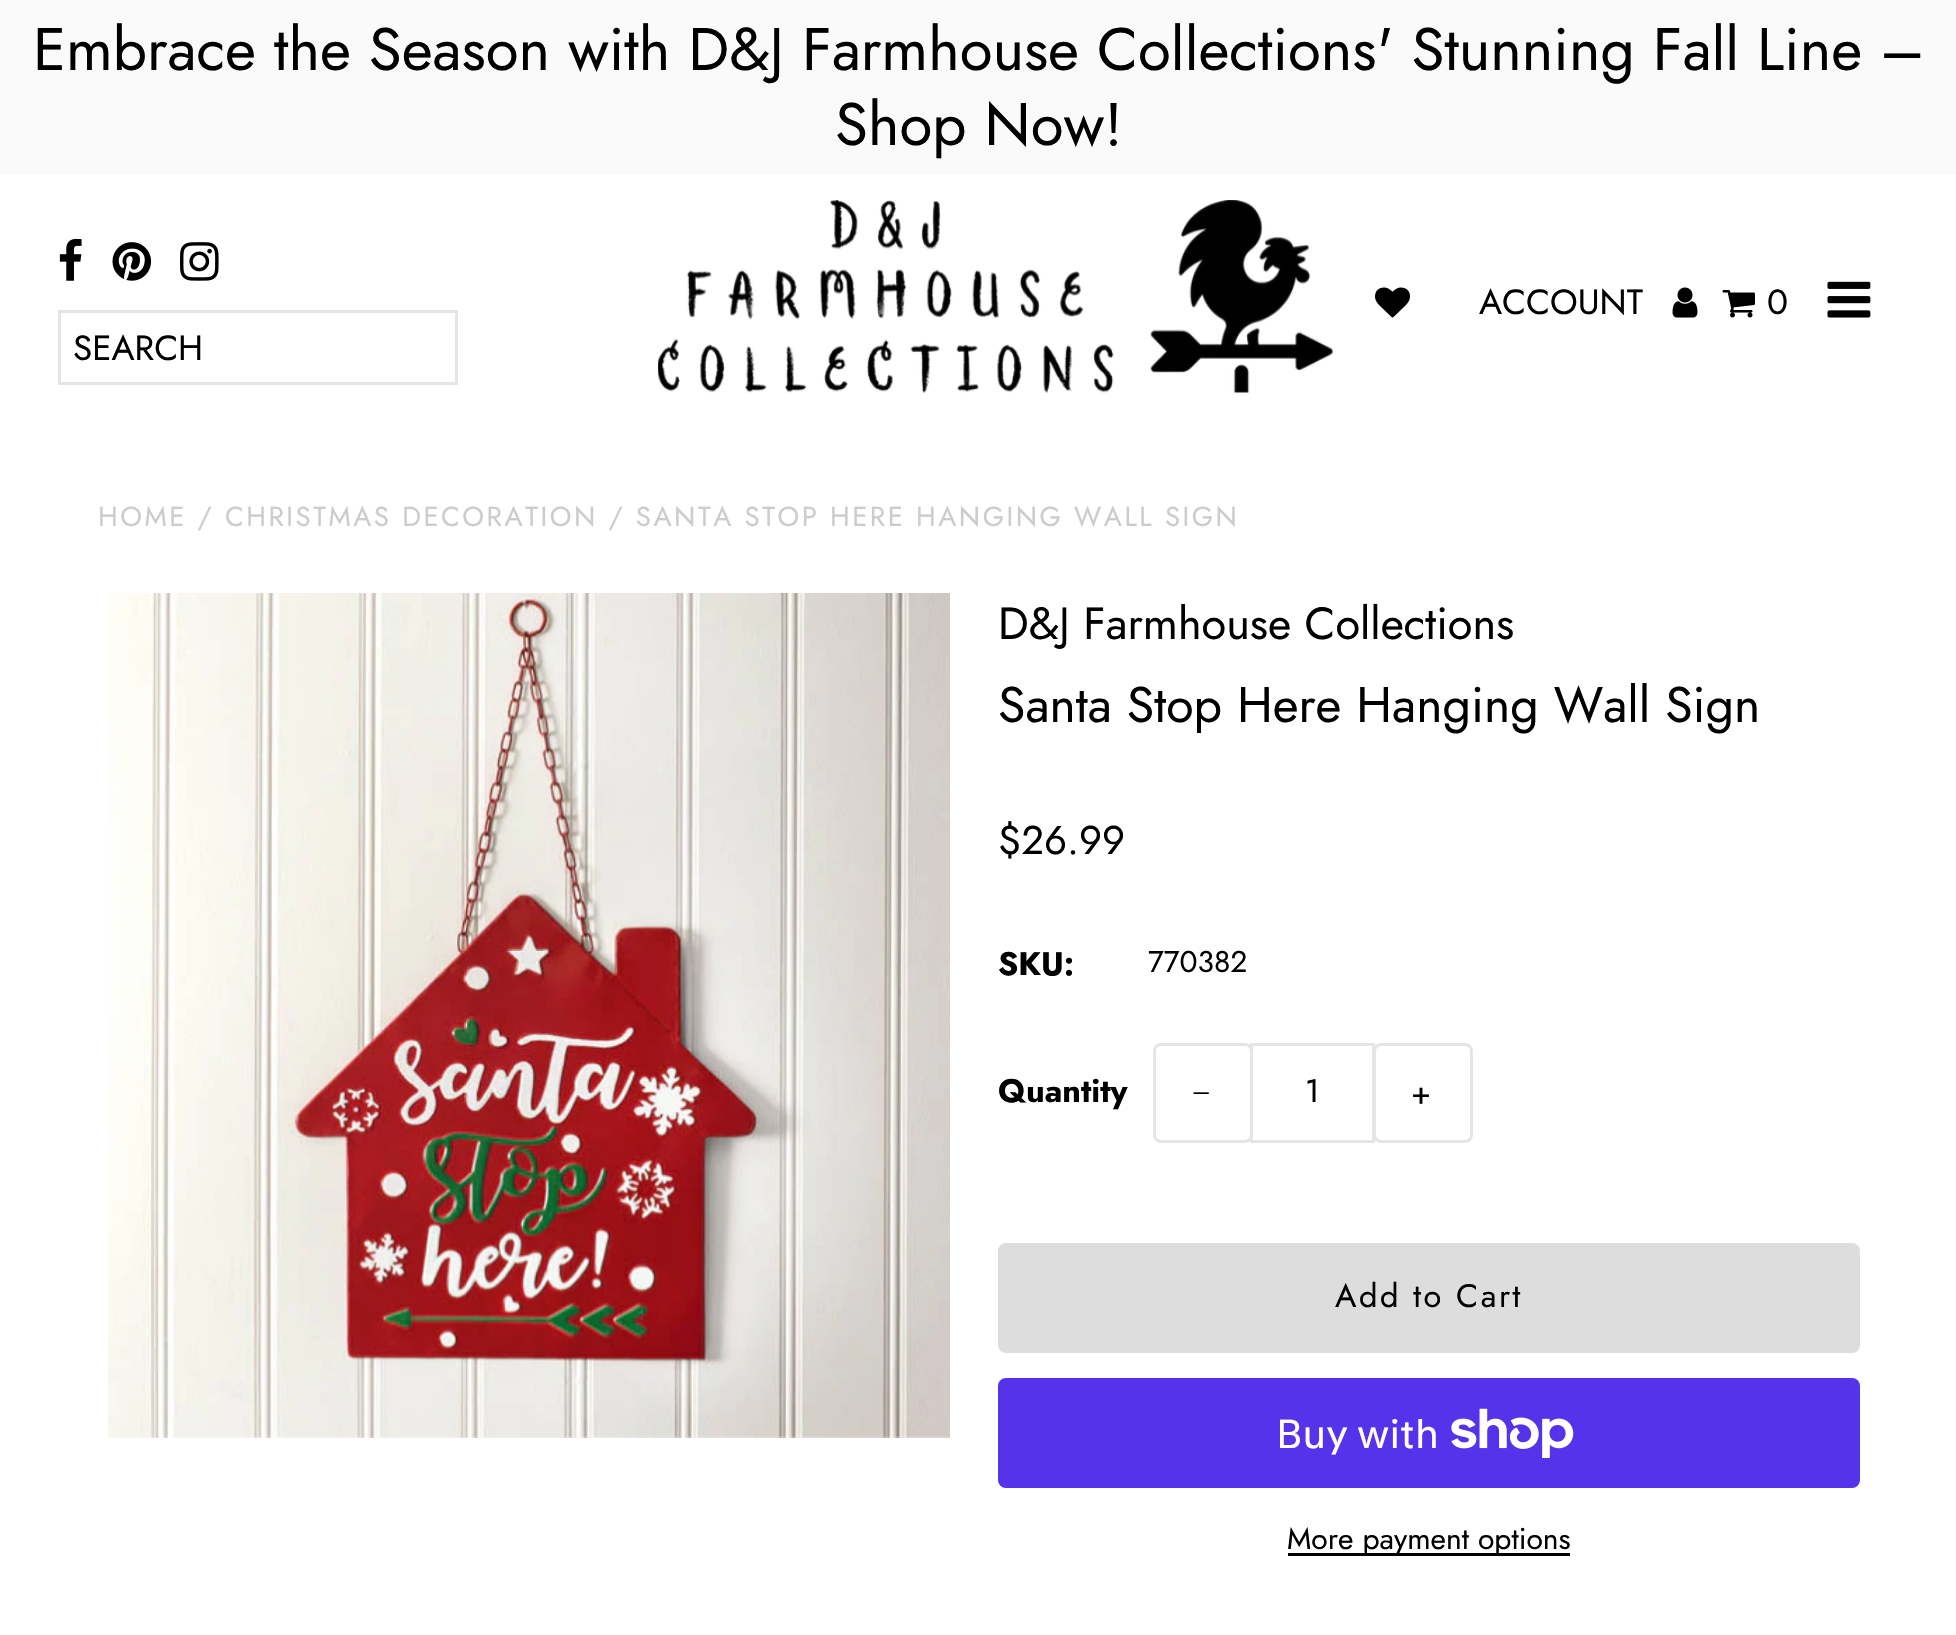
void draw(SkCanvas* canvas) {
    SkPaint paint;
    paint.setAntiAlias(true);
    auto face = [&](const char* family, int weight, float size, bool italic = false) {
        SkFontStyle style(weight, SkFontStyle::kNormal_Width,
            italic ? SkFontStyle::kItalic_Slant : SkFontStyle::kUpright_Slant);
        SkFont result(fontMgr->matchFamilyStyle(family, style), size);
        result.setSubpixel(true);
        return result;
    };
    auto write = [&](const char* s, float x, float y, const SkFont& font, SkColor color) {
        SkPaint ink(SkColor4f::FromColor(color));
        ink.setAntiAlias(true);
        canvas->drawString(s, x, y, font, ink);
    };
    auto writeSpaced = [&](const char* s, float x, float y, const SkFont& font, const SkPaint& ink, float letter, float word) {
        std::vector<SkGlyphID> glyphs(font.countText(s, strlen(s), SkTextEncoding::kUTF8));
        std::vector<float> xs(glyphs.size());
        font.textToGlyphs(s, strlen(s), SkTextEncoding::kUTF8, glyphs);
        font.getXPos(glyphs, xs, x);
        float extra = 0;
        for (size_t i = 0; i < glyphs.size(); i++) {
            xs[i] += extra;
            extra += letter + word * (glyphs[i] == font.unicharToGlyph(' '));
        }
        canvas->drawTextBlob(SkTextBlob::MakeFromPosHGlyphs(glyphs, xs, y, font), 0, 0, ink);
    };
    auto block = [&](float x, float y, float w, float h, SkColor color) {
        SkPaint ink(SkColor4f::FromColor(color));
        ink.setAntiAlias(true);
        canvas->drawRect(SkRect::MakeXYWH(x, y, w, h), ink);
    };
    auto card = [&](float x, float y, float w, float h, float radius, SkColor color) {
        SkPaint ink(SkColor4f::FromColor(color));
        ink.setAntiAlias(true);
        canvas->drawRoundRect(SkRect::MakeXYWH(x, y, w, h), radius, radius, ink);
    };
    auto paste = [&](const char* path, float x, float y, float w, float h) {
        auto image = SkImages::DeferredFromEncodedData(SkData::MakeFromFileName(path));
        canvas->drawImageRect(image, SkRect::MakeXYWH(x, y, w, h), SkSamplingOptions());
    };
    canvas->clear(SK_ColorWHITE);
    block(0, 0, 1956, 175, SkColorSetRGB(250, 250, 250));
    auto kFont1 = face("Jost", 400, 60);
    write("Embrace the Season with D&J Farmhouse Collections' Stunning Fall Line –", 33, 70, kFont1, SK_ColorBLACK);
    write("Shop Now!", 835, 145, kFont1, SK_ColorBLACK);
    paste("pic1.png", 658, 200, 675, 193);
    paste("pic2.png", 1375, 287, 35, 31);
    auto kFont2 = face("Jost", 400, 35);
    write("ACCOUNT", 1479, 314, kFont2, SK_ColorBLACK);
    paste("pic3.png", 1672, 287, 26, 31);
    paste("pic4.png", 1722, 290, 33, 28);
    write("0", 1767, 314, kFont2, SK_ColorBLACK);
    paste("pic5.png", 1827, 281, 44, 37);
    paste("pic6.png", 59, 238, 23, 43);
    paste("pic7.png", 112, 242, 40, 39);
    paste("pic8.png", 180, 242, 39, 39);
    paint.setStyle(SkPaint::kStroke_Style);
    paint.setStrokeWidth(3);
    paint.setColor(SkColorSetRGB(229, 229, 229));
    canvas->drawRect(SkRect::MakeXYWH(59.5f, 311.5f, 397, 72), paint);
    write("SEARCH", 73, 360, kFont2, SK_ColorBLACK);
    auto kFont3 = face("Jost", 400, 27.5f);
    paint.setStyle(SkPaint::kFill_Style);
    paint.setColor(SkColorSetRGB(204, 204, 204));
    writeSpaced("HOME / CHRISTMAS DECORATION / SANTA STOP HERE HANGING WALL SIGN", 98, 526, kFont3, paint, 2.5f, 0);
    paste("pic9.png", 108, 593, 842, 845);
    auto kFont4 = face("Jost", 400, 45);
    write("D&J Farmhouse Collections", 998, 639, kFont4, SK_ColorBLACK);
    auto kFont5 = face("Jost", 400, 50);
    write("Santa Stop Here Hanging Wall Sign", 998, 722, kFont5, SK_ColorBLACK);
    auto kFont6 = face("Jost", 400, 40);
    write("$26.99", 998, 854, kFont6, SK_ColorBLACK);
    auto kFont7 = face("Jost", 700, 32.5f);
    write("SKU:", 998, 975, kFont7, SK_ColorBLACK);
    auto kFont8 = face("Jost", 400, 30);
    write("770382", 1148, 972, kFont8, SK_ColorBLACK);
    write("Quantity", 998, 1102, kFont7, SK_ColorBLACK);
    paint.setStyle(SkPaint::kStroke_Style);
    paint.setColor(SkColorSetRGB(229, 229, 229));
    canvas->drawRoundRect(SkRect::MakeXYWH(1154.5f, 1044.5f, 97, 97), 6.5f, 6.5f, paint);
    auto kFont9 = face("Liberation Serif", 400, 32.5f);
    paint.setStyle(SkPaint::kFill_Style);
    paint.setColor(SK_ColorBLACK);
    writeSpaced("−", 1192, 1104, kFont9, paint, 2.5f, 0);
    paint.setStyle(SkPaint::kStroke_Style);
    paint.setColor(SkColorSetRGB(229, 229, 229));
    canvas->drawRect(SkRect::MakeXYWH(1251.5f, 1044.5f, 122, 97), paint);
    auto kFont10 = face("Jost", 400, 32.5f);
    write("1", 1305, 1102, kFont10, SK_ColorBLACK);
    canvas->drawRoundRect(SkRect::MakeXYWH(1374.5f, 1044.5f, 97, 97), 6.5f, 6.5f, paint);
    paint.setStyle(SkPaint::kFill_Style);
    paint.setColor(SK_ColorBLACK);
    writeSpaced("+", 1411, 1104, kFont10, paint, 2.5f, 0);
    card(998, 1243, 862, 110, 8, SkColorSetRGB(221, 221, 221));
    writeSpaced("Add to Cart", 1335, 1307, kFont10, paint, 2.5f, 0);
    card(998, 1378, 862, 110, 8, SkColorSetRGB(84, 51, 235));
    auto kFont11 = face("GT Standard", 400, 40);
    write("Buy with", 1276, 1448, kFont11, SK_ColorWHITE);
    paste("pic10.png", 1451, 1408, 123, 50);
    block(1288, 1553, 282, 3, SK_ColorBLACK);
    write("More payment options", 1287, 1549, kFont8, SK_ColorBLACK);
}
